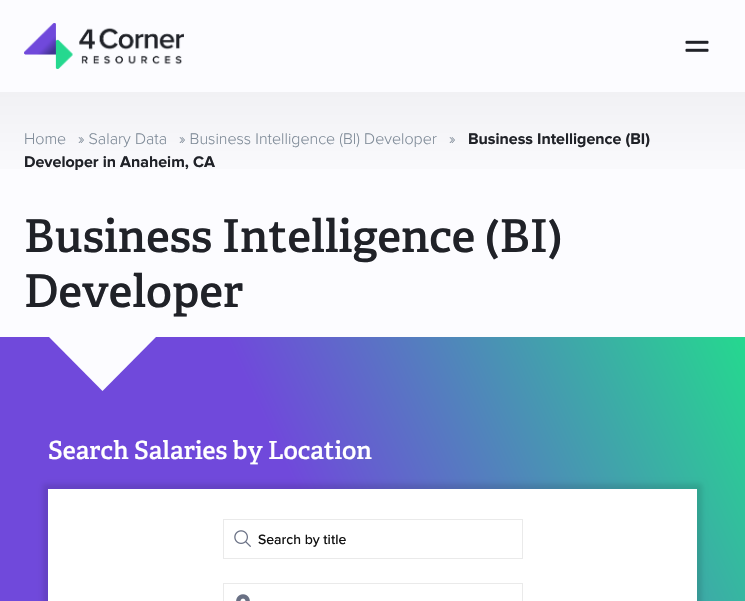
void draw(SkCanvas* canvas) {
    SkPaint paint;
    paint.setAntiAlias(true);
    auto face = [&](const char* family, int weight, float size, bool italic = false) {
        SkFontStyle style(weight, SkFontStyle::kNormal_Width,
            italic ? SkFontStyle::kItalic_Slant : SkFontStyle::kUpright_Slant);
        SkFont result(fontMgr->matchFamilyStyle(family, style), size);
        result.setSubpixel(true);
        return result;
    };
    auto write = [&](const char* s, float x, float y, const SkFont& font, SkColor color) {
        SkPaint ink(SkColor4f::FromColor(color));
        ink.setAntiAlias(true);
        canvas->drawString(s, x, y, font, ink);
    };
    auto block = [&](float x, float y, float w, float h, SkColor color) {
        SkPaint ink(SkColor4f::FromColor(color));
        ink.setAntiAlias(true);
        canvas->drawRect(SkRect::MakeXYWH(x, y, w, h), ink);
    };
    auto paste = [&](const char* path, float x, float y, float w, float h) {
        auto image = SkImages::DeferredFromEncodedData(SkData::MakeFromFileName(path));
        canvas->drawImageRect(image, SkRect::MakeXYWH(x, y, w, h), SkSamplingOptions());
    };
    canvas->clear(SkColorSetRGB(252, 252, 255));
    paste("pic1.png", 24, 23, 160, 46);
    paste("pic2.png", 685, 40, 24, 12);
    {
        const SkColor colors[] = {SkColorSetRGB(241, 241, 244), SkColorSetRGB(252, 252, 255)};
        const float stops[] = {0, 1};
        const SkPoint ends[] = {{373, 92}, {373, 192}};
        paint.setShader(SkGradientShader::MakeLinear(ends, colors, stops, 2, SkTileMode::kClamp));
        paint.setAlpha(255);
    }
    canvas->drawRect(SkRect::MakeXYWH(0, 92, 745, 77), paint);
    auto kFont1 = face("Proxima Nova", 300, 16);
    write("Home", 24, 144, kFont1, SkColorSetRGB(126, 138, 151));
    write("» Salary Data", 78, 144, kFont1, SkColorSetRGB(126, 138, 151));
    write("» Business Intelligence (BI) Developer", 179, 144, kFont1, SkColorSetRGB(126, 138, 151));
    write("»", 449, 144, kFont1, SkColorSetRGB(126, 138, 151));
    auto kFont2 = face("Proxima Nova", 700, 16);
    write("Business Intelligence (BI)", 468, 144, kFont2, SkColorSetRGB(32, 34, 40));
    write("Developer in Anaheim, CA", 24, 167, kFont2, SkColorSetRGB(32, 34, 40));
    auto kFont3 = face("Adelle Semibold", 600, 45.25f);
    write("Business Intelligence (BI)", 24, 252, kFont3, SkColorSetRGB(32, 34, 40));
    write("Developer", 24, 307, kFont3, SkColorSetRGB(32, 34, 40));
    {
        const SkColor colors[] = {SkColorSetRGB(37, 216, 143), SkColorSetRGB(112, 73, 219)};
        const float stops[] = {0, 0.55f};
        const SkPoint ends[] = {{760, 370}, {-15, 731}};
        paint.setShader(SkGradientShader::MakeLinear(ends, colors, stops, 2, SkTileMode::kClamp));
        paint.setAlpha(255);
    }
    canvas->drawRect(SkRect::MakeXYWH(0, 337, 745, 264), paint);
    paste("pic3.png", 48, 336, 108, 55);
    auto kFont4 = face("Adelle Semibold", 600, 25);
    write("Search Salaries by Location", 48, 459, kFont4, SK_ColorWHITE);
    paint.setShader(nullptr);
    paint.setColor(SkColorSetARGB(28, 0, 0, 0));
    paint.setMaskFilter(SkMaskFilter::MakeBlur(kNormal_SkBlurStyle, 2.5f));
    canvas->drawRect(SkRect::MakeXYWH(43, 484, 659, 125), paint);
    paint.setMaskFilter(nullptr);
    block(48, 489, 649, 112, SK_ColorWHITE);
    paste("pic4.png", 234, 530, 17, 17);
    paint.setStyle(SkPaint::kStroke_Style);
    paint.setStrokeWidth(1);
    paint.setColor(SkColorSetRGB(234, 234, 234));
    canvas->drawRect(SkRect::MakeXYWH(223.5f, 519.5f, 299, 39), paint);
    auto kFont5 = face("Proxima Nova", 500, 14);
    write("Search by title", 258, 544, kFont5, SkColorSetRGB(17, 17, 17));
    paste("pic5.png", 236, 594, 14, 7);
    canvas->drawRect(SkRect::MakeXYWH(223.5f, 583.5f, 299, 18), paint);
}
